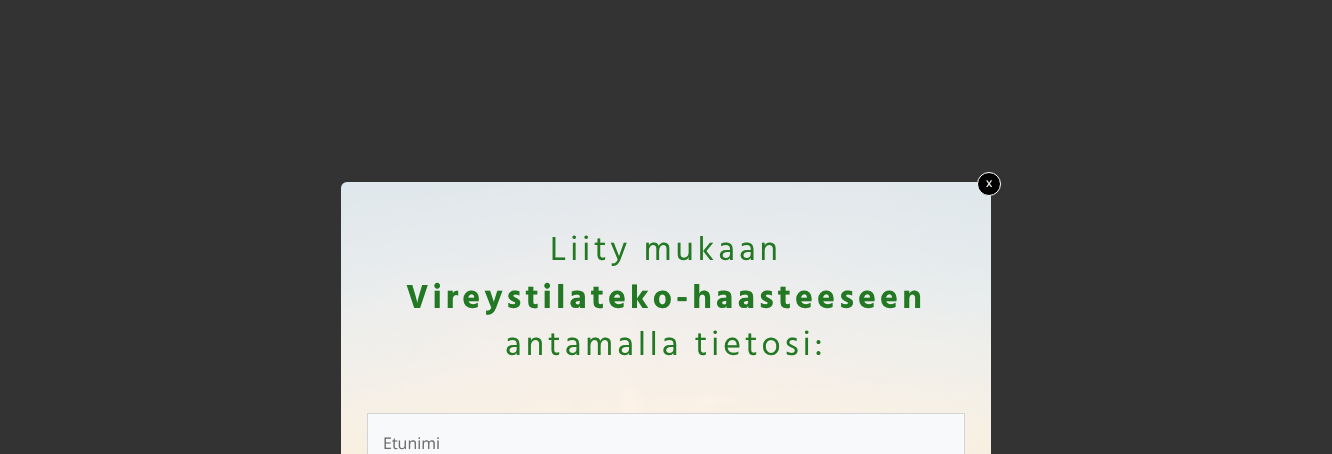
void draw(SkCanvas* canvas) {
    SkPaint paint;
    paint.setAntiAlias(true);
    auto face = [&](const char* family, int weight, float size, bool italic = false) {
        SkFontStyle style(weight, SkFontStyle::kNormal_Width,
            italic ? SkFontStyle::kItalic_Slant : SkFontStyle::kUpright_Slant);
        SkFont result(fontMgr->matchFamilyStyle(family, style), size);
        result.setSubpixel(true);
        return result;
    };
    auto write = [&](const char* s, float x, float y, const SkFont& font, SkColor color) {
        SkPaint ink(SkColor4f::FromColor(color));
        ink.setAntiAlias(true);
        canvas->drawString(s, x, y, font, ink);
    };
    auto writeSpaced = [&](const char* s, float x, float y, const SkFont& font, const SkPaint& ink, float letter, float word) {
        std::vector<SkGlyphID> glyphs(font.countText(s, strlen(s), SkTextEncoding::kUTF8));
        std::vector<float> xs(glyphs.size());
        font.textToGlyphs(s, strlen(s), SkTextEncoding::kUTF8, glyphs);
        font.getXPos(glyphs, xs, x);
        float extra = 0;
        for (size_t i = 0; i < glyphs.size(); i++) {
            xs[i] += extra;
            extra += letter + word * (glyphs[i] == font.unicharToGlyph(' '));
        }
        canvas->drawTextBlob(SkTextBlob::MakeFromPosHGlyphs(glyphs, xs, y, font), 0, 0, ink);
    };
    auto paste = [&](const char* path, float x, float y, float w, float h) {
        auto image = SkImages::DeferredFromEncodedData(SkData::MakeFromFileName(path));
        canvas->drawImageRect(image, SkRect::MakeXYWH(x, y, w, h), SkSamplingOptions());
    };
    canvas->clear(SkColorSetRGB(51, 51, 51));
    paste("pic1.png", 341, 182, 650, 272);
    paint.setColor(SK_ColorBLACK);
    canvas->drawCircle(989, 184, 11.5f, paint);
    paint.setStyle(SkPaint::kStroke_Style);
    paint.setStrokeWidth(1);
    paint.setColor(SK_ColorWHITE);
    canvas->drawCircle(989, 184, 11.5f, paint);
    auto kFont1 = face("Open Sans", 400, 12);
    write("x", 986, 187, kFont1, SK_ColorWHITE);
    auto kFont2 = face("Hind", 400, 34);
    paint.setStyle(SkPaint::kFill_Style);
    paint.setColor(SkColorSetRGB(35, 121, 35));
    writeSpaced("Liity mukaan", 550, 260, kFont2, paint, 4, 0);
    auto kFont3 = face("Hind", 700, 34);
    writeSpaced("Vireystilateko-haasteeseen", 406, 308, kFont3, paint, 4, 0);
    writeSpaced("antamalla tietosi:", 505, 355, kFont2, paint, 4, 0);
    paint.setColor(SkColorSetRGB(248, 249, 250));
    canvas->drawRect(SkRect::MakeXYWH(367.5f, 413.5f, 597, 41), paint);
    paint.setStyle(SkPaint::kStroke_Style);
    paint.setColor(SkColorSetRGB(211, 212, 212));
    canvas->drawRect(SkRect::MakeXYWH(367.5f, 413.5f, 597, 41), paint);
    auto kFont4 = face("Open Sans", 400, 16);
    write("Etunimi", 383, 449, kFont4, SkColorSetRGB(109, 110, 110));
}
